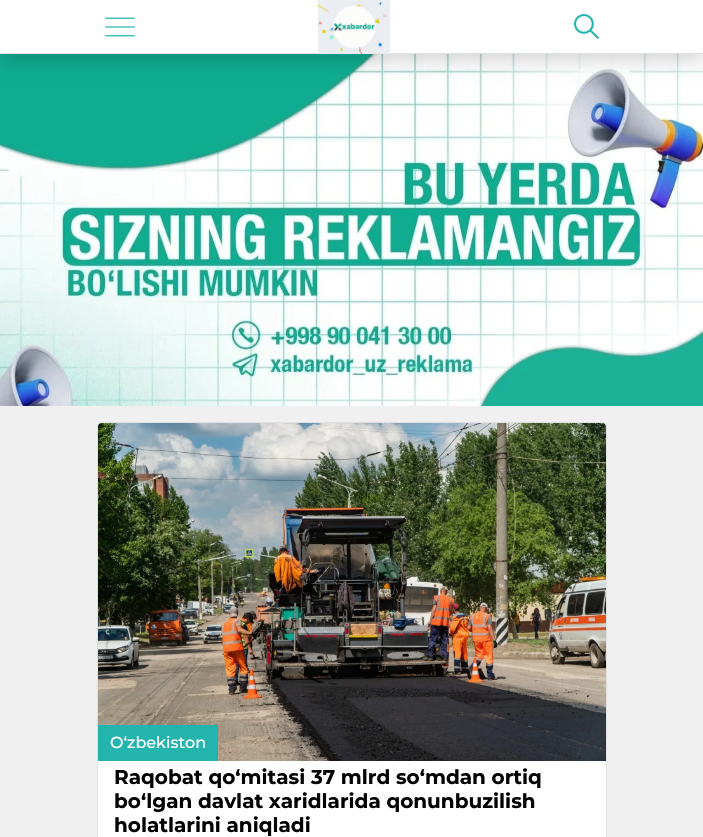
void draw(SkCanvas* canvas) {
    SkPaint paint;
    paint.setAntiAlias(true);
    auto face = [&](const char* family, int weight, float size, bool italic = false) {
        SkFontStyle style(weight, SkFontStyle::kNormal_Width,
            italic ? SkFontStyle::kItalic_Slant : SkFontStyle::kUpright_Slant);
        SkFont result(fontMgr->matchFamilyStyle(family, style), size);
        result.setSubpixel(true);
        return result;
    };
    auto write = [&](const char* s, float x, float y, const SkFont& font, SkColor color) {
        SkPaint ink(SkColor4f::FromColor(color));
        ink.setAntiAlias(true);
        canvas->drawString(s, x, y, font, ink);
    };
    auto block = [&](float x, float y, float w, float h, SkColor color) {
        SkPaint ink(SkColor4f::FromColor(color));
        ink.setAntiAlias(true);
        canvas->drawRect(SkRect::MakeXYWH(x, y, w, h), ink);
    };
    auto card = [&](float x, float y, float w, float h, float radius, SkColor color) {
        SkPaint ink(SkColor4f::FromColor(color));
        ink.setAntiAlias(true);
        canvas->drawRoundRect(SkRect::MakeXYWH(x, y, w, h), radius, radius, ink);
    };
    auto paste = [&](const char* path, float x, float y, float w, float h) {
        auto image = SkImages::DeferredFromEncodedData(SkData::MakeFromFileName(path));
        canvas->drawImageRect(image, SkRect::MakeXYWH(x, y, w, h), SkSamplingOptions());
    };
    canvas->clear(SkColorSetRGB(240, 240, 240));
    paste("pic4.png", 0, 54, 703, 352);
    paint.setColor(SkColorSetARGB(38, 0, 0, 0));
    paint.setMaskFilter(SkMaskFilter::MakeBlur(kNormal_SkBlurStyle, 8));
    canvas->drawRect(SkRect::MakeXYWH(0, 8, 703, 54), paint);
    paint.setMaskFilter(nullptr);
    block(0, 0, 703, 53, SK_ColorWHITE);
    block(0, 53, 703, 1, SkColorSetRGB(222, 226, 230));
    paste("pic1.png", 105, 17, 30, 20);
    paste("pic2.png", 318, 0, 72, 54);
    paste("pic3.png", 574, 14, 25, 25);
    card(97, 422, 510, 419, 4, SK_ColorWHITE);
    paint.setStyle(SkPaint::kStroke_Style);
    paint.setStrokeWidth(1);
    paint.setColor(SkColorSetARGB(31, 0, 0, 0));
    canvas->drawRoundRect(SkRect::MakeXYWH(97.5f, 422.5f, 509, 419), 3.5f, 3.5f, paint);
    paste("pic5.png", 98, 423, 508, 338);
    block(98, 725, 120, 36, SkColorSetRGB(36, 180, 174));
    auto kFont1 = face("Montserrat", 500, 16);
    write("O‘zbekiston", 110, 748, kFont1, SK_ColorWHITE);
    auto kFont2 = face("Montserrat", 700, 20);
    write("Raqobat qo‘mitasi 37 mlrd so‘mdan ortiq", 114, 784, kFont2, SK_ColorBLACK);
    write("bo‘lgan davlat xaridlarida qonunbuzilish", 114, 808, kFont2, SK_ColorBLACK);
    write("holatlarini aniqladi", 114, 832, kFont2, SK_ColorBLACK);
}
